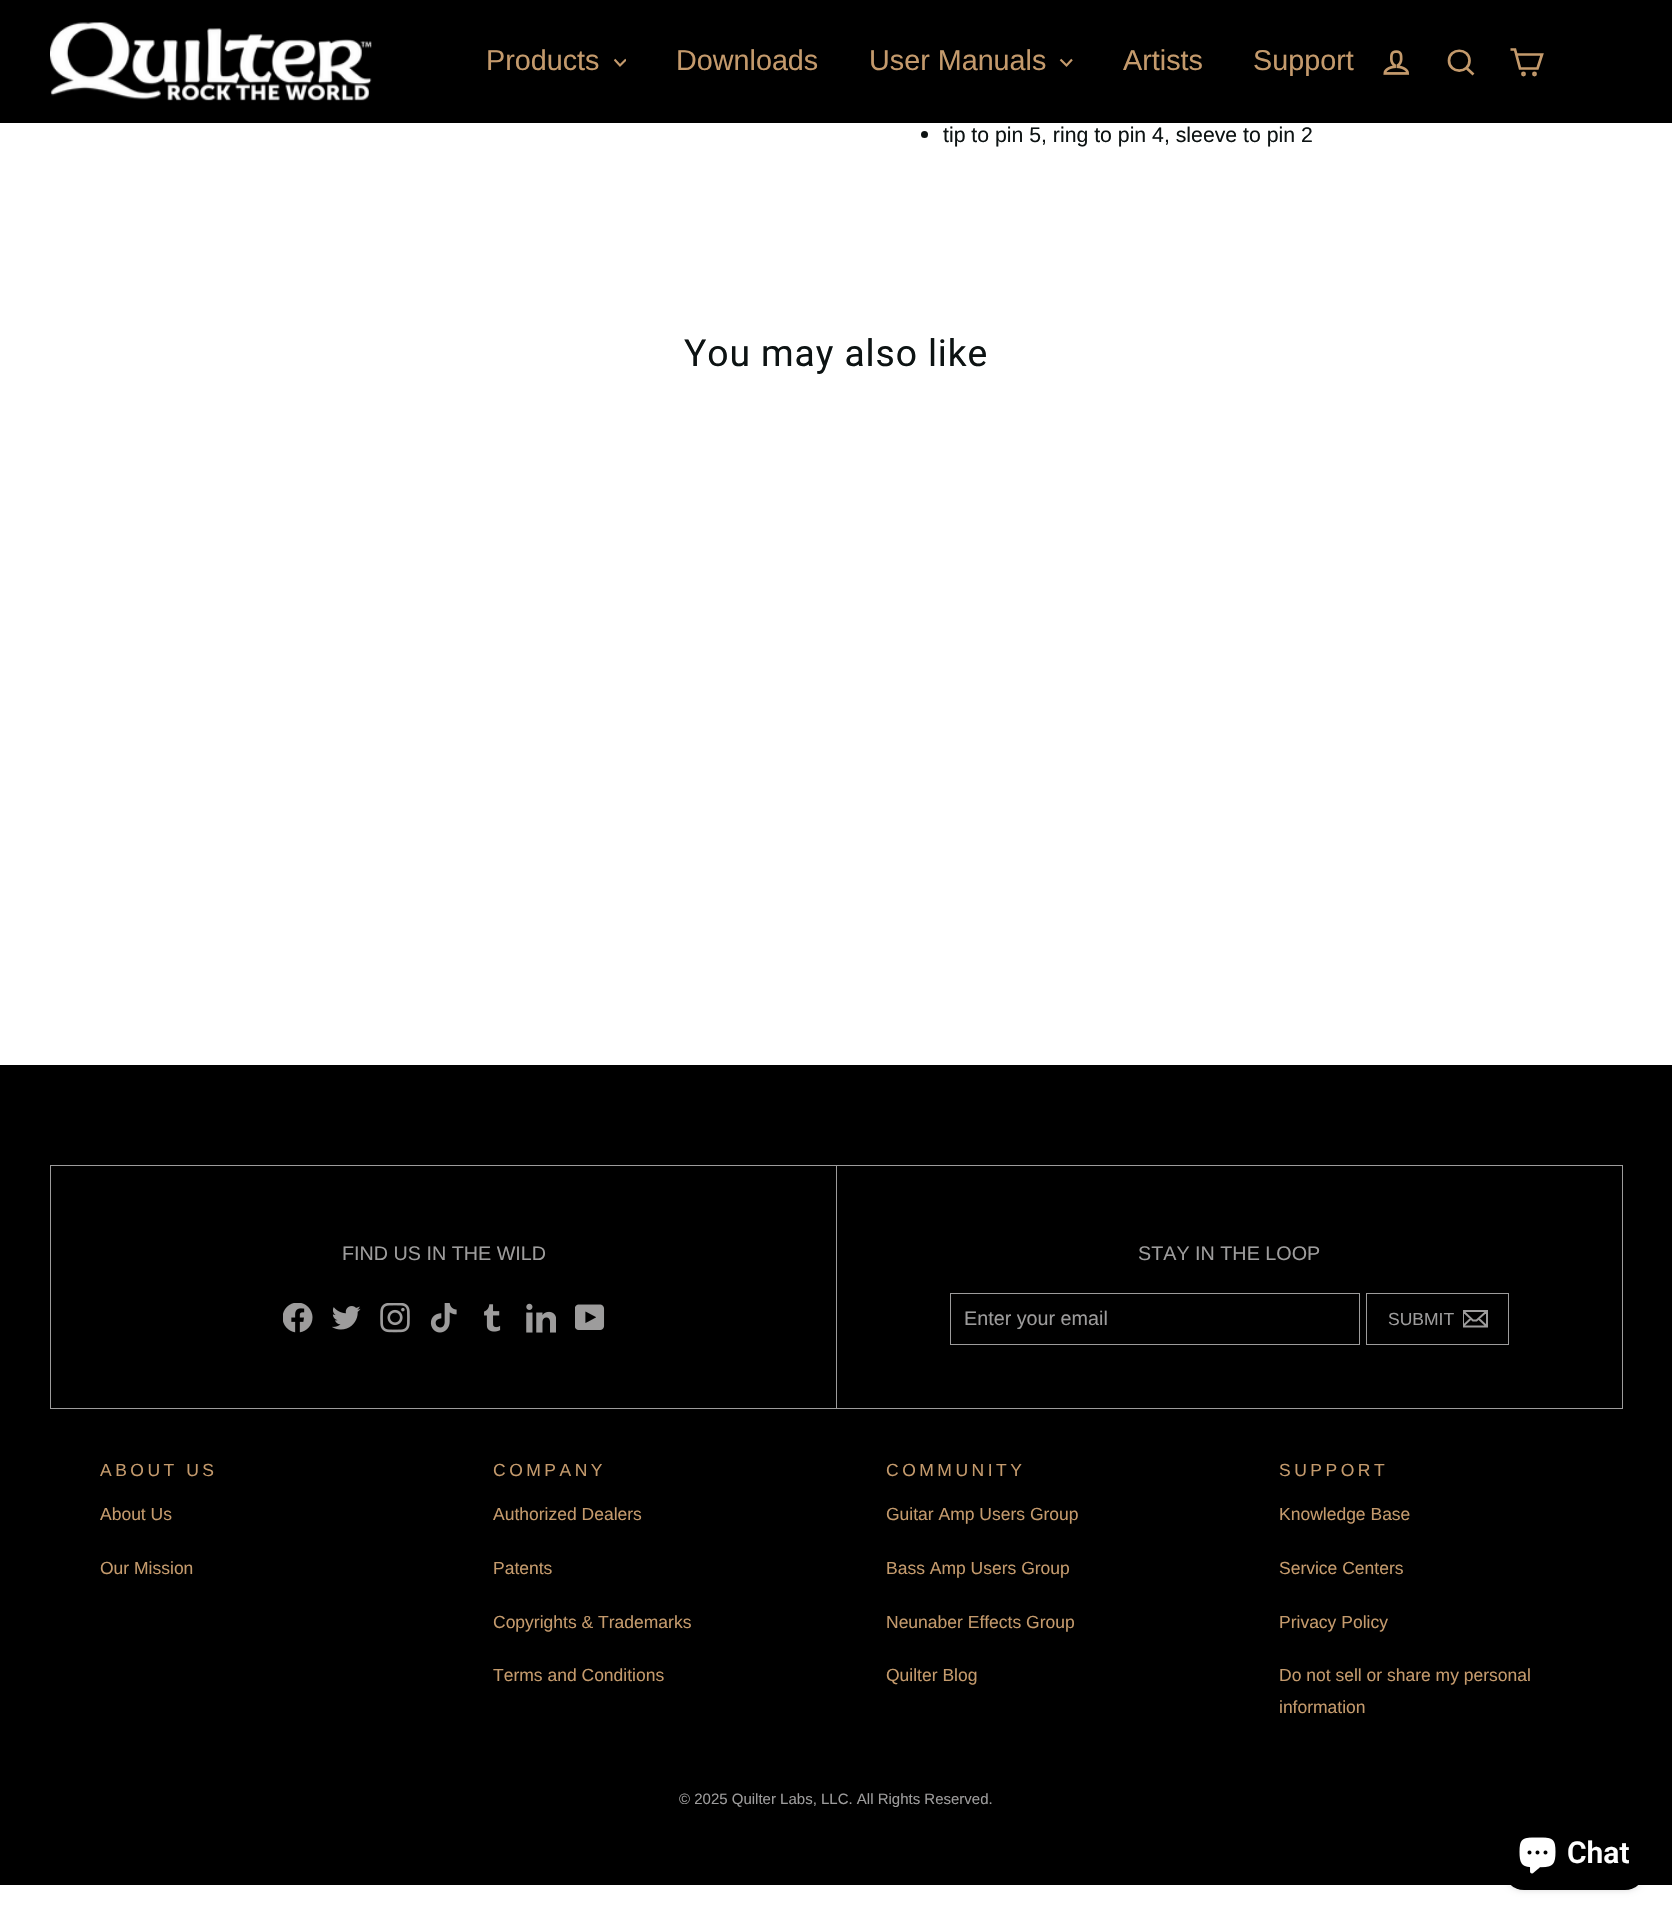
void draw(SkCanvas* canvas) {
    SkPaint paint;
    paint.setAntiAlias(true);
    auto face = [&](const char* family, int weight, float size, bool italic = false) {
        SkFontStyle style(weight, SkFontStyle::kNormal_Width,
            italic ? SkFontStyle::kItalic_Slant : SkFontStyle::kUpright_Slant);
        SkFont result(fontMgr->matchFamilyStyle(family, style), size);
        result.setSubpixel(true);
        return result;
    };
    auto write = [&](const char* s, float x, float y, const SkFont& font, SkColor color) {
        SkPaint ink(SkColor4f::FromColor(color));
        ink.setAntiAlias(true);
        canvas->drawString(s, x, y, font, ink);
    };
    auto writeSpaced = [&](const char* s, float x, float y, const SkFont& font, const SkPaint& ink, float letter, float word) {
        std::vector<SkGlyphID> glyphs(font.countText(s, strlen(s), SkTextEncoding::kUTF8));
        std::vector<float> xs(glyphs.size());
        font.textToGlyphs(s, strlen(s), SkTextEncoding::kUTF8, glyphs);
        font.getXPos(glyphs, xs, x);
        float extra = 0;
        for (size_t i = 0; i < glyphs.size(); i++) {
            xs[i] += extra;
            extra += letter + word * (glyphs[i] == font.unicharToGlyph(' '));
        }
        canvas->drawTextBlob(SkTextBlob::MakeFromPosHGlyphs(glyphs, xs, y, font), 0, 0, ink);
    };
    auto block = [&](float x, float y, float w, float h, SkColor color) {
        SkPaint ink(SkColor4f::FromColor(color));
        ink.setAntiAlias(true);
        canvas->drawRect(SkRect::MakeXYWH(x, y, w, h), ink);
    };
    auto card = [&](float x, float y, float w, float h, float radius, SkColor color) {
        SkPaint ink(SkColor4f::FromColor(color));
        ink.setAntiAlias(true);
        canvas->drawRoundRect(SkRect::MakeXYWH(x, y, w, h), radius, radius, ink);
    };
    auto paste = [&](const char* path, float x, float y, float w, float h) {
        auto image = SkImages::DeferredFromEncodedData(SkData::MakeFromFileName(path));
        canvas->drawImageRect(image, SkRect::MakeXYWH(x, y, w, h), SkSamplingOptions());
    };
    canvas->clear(SK_ColorWHITE);
    block(0, 0, 1672, 123, SK_ColorBLACK);
    paste("pic1.png", 50, 22, 322, 79);
    auto kFont1 = face("Liberation Sans", 400, 28.75f);
    write("Products", 486, 70, kFont1, SkColorSetRGB(196, 154, 108));
    canvas->save();
    canvas->clipRect(SkRect::MakeXYWH(614, 56, 12, 13));
    paint.setStyle(SkPaint::kStroke_Style);
    paint.setStrokeWidth(2.2f);
    paint.setColor(SkColorSetRGB(196, 154, 108));
    canvas->drawPath(SkPathBuilder().moveTo(614.5f, 59.5f).lineTo(620, 65.5f).lineTo(626, 59.5f).detach(), paint);
    canvas->restore();
    write("Downloads", 676, 70, kFont1, SkColorSetRGB(196, 154, 108));
    write("User Manuals", 869, 70, kFont1, SkColorSetRGB(196, 154, 108));
    canvas->drawPath(SkPathBuilder().moveTo(1060.5f, 59.5f).lineTo(1066.5f, 65.5f).lineTo(1072, 59.5f).detach(), paint);
    write("Artists", 1123, 70, kFont1, SkColorSetRGB(196, 154, 108));
    write("Support", 1253, 70, kFont1, SkColorSetRGB(196, 154, 108));
    paste("pic2.png", 1383, 50, 27, 25);
    paint.setStrokeWidth(2.7f);
    canvas->drawPath(SkPathBuilder().moveTo(1469.5f, 60.5f).cubicTo(1469.5f, 74, 1449, 74, 1449, 60.5f).cubicTo(1449, 47.5f, 1469.5f, 47.5f, 1469.5f, 60.5f).close().moveTo(1473.5f, 74.5f).lineTo(1466.5f, 68).detach(), paint);
    canvas->drawPath(SkPathBuilder().moveTo(1516.5f, 54.5f).lineTo(1542, 54.5f).lineTo(1537.5f, 68.5f).lineTo(1520, 68.5f).lineTo(1515, 49.5f).lineTo(1510.5f, 49.5f).detach(), paint);
    canvas->drawCircle(1523.5f, 74, 1.1f, paint);
    canvas->drawCircle(1534.5f, 74, 1.1f, paint);
    paint.setStyle(SkPaint::kFill_Style);
    paint.setColor(SkColorSetRGB(13, 19, 19));
    canvas->drawCircle(924.5f, 134.5f, 3.5f, paint);
    auto kFont2 = face("Liberation Sans", 400, 21.25f);
    write("tip to pin 5, ring to pin 4, sleeve to pin 2", 943, 142, kFont2, SkColorSetRGB(13, 19, 19));
    auto kFont3 = face("Roboto", 400, 37.25f);
    writeSpaced("You may also like", 684, 366, kFont3, paint, 0.9f, 0);
    block(0, 1065, 1672, 820, SK_ColorBLACK);
    block(50, 1165, 786, 1, SkColorSetRGB(157, 156, 156));
    block(50, 1408, 786, 1, SkColorSetRGB(157, 156, 156));
    block(50, 1165, 1, 244, SkColorSetRGB(157, 156, 156));
    auto kFont4 = face("Liberation Sans", 400, 19.75f);
    write("FIND US IN THE WILD", 342, 1260, kFont4, SkColorSetRGB(157, 156, 156));
    paste("pic3.png", 283, 1303, 30, 30);
    paste("pic4.png", 332, 1306, 29, 24);
    paste("pic5.png", 380, 1303, 30, 30);
    paste("pic6.png", 430, 1303, 27, 30);
    paste("pic7.png", 484, 1304, 17, 28);
    paste("pic8.png", 526, 1303, 30, 30);
    paste("pic9.png", 575, 1304, 30, 26);
    paint.setStyle(SkPaint::kStroke_Style);
    paint.setStrokeWidth(1);
    paint.setColor(SkColorSetRGB(157, 156, 156));
    canvas->drawRect(SkRect::MakeXYWH(836.5f, 1165.5f, 786, 243), paint);
    write("STAY IN THE LOOP", 1138, 1260, kFont4, SkColorSetRGB(157, 156, 156));
    canvas->drawRect(SkRect::MakeXYWH(950.5f, 1293.5f, 409, 51), paint);
    write("Enter your email", 964, 1325, kFont4, SkColorSetRGB(157, 156, 156));
    canvas->drawRect(SkRect::MakeXYWH(1366.5f, 1293.5f, 142, 51), paint);
    auto kFont5 = face("Liberation Sans", 400, 17.5f);
    write("SUBMIT", 1388, 1325, kFont5, SkColorSetRGB(157, 156, 156));
    canvas->save();
    canvas->clipRect(SkRect::MakeXYWH(1463, 1306, 25, 25));
    paint.setStrokeWidth(2);
    canvas->drawPath(SkPathBuilder().moveTo(1487, 1326.5f).lineTo(1463, 1326.5f).lineTo(1463, 1311).lineTo(1487, 1311).close().moveTo(1463, 1311).lineTo(1473, 1320.5f).lineTo(1476.5f, 1320.5f).lineTo(1487, 1311).moveTo(1471, 1318.5f).lineTo(1463, 1326).moveTo(1487, 1326.5f).lineTo(1478.5f, 1318.5f).detach(), paint);
    canvas->restore();
    paint.setStyle(SkPaint::kFill_Style);
    paint.setColor(SkColorSetRGB(196, 154, 108));
    writeSpaced("ABOUT US", 100, 1476, kFont5, paint, 3.5f, 0);
    write("About Us", 100, 1520, kFont5, SkColorSetRGB(196, 154, 108));
    write("Our Mission", 100, 1574, kFont5, SkColorSetRGB(196, 154, 108));
    writeSpaced("COMPANY", 493, 1476, kFont5, paint, 3.5f, 0);
    write("Authorized Dealers", 493, 1520, kFont5, SkColorSetRGB(196, 154, 108));
    write("Patents", 493, 1574, kFont5, SkColorSetRGB(196, 154, 108));
    write("Copyrights & Trademarks", 493, 1628, kFont5, SkColorSetRGB(196, 154, 108));
    write("Terms and Conditions", 493, 1681, kFont5, SkColorSetRGB(196, 154, 108));
    writeSpaced("COMMUNITY", 886, 1476, kFont5, paint, 3.5f, 0);
    write("Guitar Amp Users Group", 886, 1520, kFont5, SkColorSetRGB(196, 154, 108));
    write("Bass Amp Users Group", 886, 1574, kFont5, SkColorSetRGB(196, 154, 108));
    write("Neunaber Effects Group", 886, 1628, kFont5, SkColorSetRGB(196, 154, 108));
    write("Quilter Blog", 886, 1681, kFont5, SkColorSetRGB(196, 154, 108));
    writeSpaced("SUPPORT", 1279, 1476, kFont5, paint, 3.5f, 0);
    write("Knowledge Base", 1279, 1520, kFont5, SkColorSetRGB(196, 154, 108));
    write("Service Centers", 1279, 1574, kFont5, SkColorSetRGB(196, 154, 108));
    write("Privacy Policy", 1279, 1628, kFont5, SkColorSetRGB(196, 154, 108));
    write("Do not sell or share my personal", 1279, 1681, kFont5, SkColorSetRGB(196, 154, 108));
    write("information", 1279, 1713, kFont5, SkColorSetRGB(196, 154, 108));
    auto kFont6 = face("Liberation Sans", 400, 15);
    write("© 2025 Quilter Labs, LLC. All Rights Reserved.", 679, 1804, kFont6, SkColorSetRGB(157, 156, 156));
    paint.setColor(SkColorSetARGB(38, 0, 0, 0));
    paint.setMaskFilter(SkMaskFilter::MakeBlur(kNormal_SkBlurStyle, 3));
    canvas->drawRoundRect(SkRect::MakeXYWH(1504, 1815, 141, 75), 20, 20, paint);
    paint.setMaskFilter(nullptr);
    card(1504, 1815, 141, 75, 20, SK_ColorBLACK);
    paste("pic10.png", 1519, 1837, 37, 37);
    auto kFont7 = face("Roboto", 600, 30);
    write("Chat", 1567, 1863, kFont7, SK_ColorWHITE);
}
